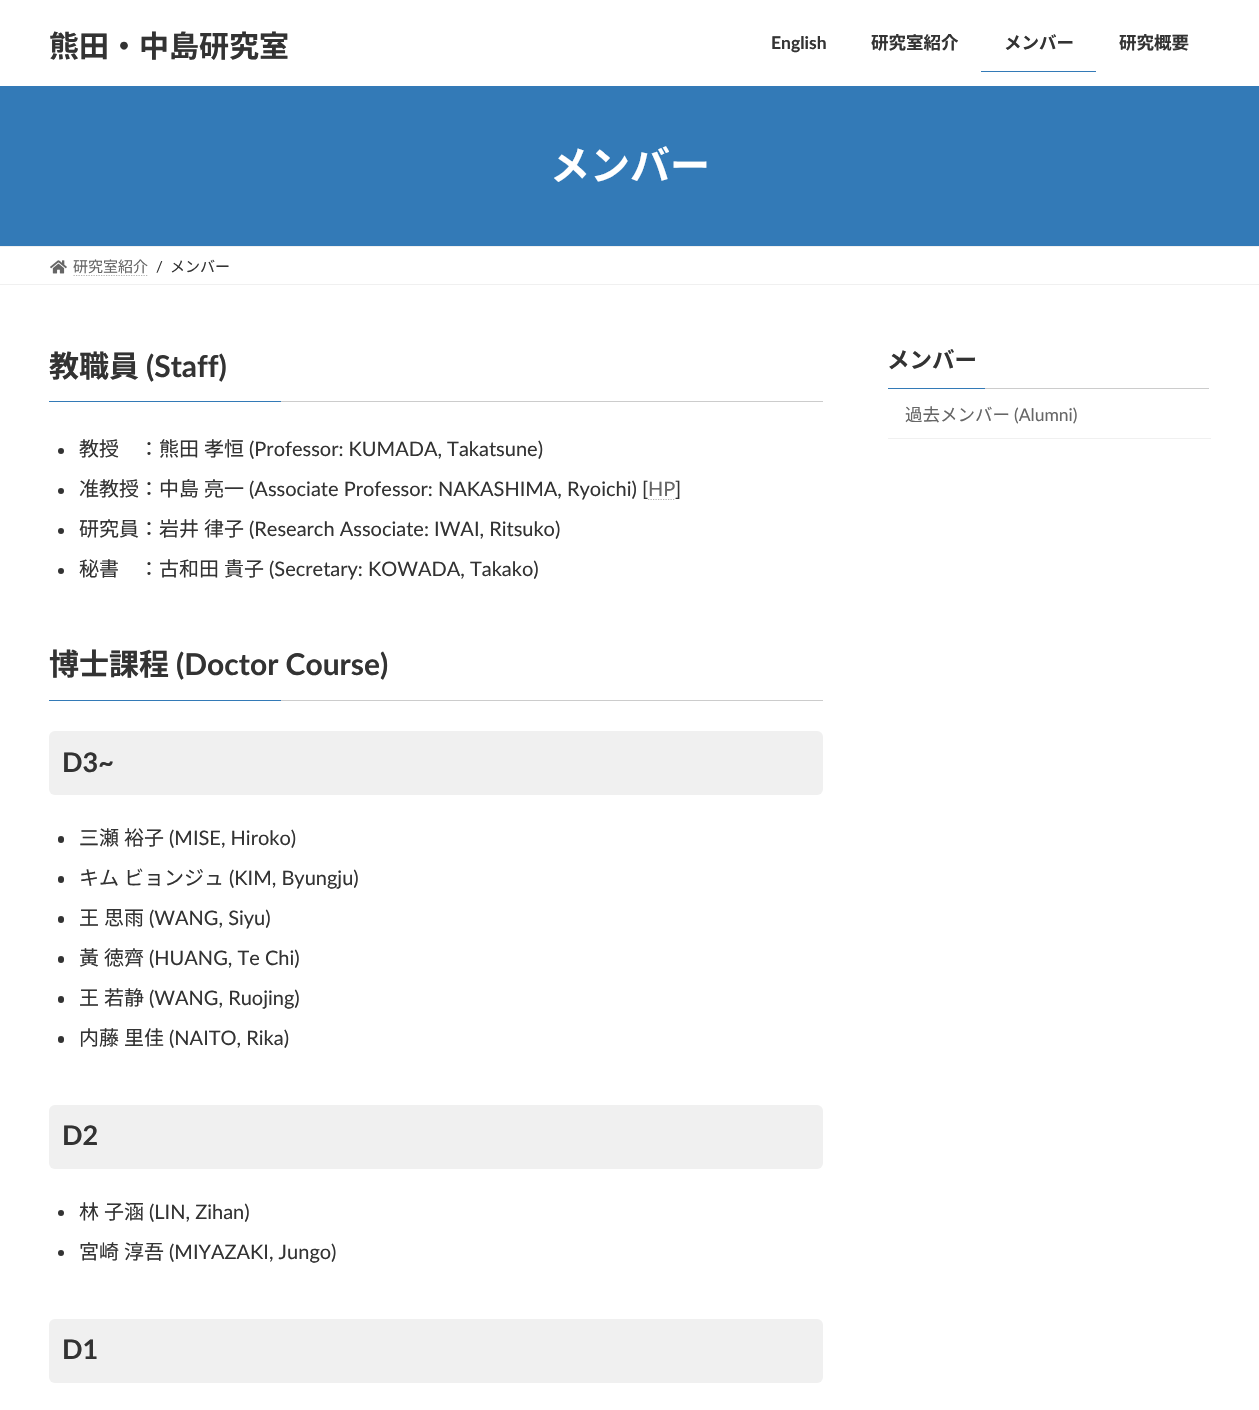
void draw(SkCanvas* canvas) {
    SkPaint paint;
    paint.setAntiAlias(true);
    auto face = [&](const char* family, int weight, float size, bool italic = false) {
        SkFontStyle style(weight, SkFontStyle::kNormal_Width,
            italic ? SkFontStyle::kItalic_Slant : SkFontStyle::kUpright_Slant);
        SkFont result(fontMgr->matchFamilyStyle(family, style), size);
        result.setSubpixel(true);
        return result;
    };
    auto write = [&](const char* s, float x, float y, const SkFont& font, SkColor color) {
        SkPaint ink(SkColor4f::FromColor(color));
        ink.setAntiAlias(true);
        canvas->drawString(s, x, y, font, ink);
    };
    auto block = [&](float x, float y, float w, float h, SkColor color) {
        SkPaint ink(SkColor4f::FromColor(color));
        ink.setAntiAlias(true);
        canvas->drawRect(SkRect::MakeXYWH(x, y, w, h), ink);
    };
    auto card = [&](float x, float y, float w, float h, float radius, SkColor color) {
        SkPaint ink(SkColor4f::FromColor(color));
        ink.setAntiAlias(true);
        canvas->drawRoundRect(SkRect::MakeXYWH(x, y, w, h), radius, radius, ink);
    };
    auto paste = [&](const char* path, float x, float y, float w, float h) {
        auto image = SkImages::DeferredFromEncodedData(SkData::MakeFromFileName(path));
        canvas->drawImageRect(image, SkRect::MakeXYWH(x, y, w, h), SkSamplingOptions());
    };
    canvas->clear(SK_ColorWHITE);
    auto kFont1 = face("Noto Sans JP", 700, 30);
    write("熊田・中島研究室", 49, 57, kFont1, SkColorSetRGB(51, 51, 51));
    auto kFont2 = face("Lato", 700, 17.5f);
    write("English", 771, 49, kFont2, SkColorSetRGB(51, 51, 51));
    auto kFont3 = face("Noto Sans JP", 700, 17.5f);
    write("研究室紹介", 871, 49, kFont3, SkColorSetRGB(51, 51, 51));
    write("メンバー", 1004, 49, kFont3, SkColorSetRGB(51, 51, 51));
    block(981, 71, 115, 1, SkColorSetRGB(51, 122, 183));
    write("研究概要", 1119, 49, kFont3, SkColorSetRGB(51, 51, 51));
    block(0, 86, 1259, 160, SkColorSetRGB(51, 122, 183));
    auto kFont4 = face("Noto Sans JP", 700, 40);
    write("メンバー", 550, 180, kFont4, SK_ColorWHITE);
    block(0, 246, 1259, 1, SkColorSetRGB(240, 240, 240));
    block(0, 284, 1259, 1, SkColorSetRGB(240, 240, 240));
    paste("pic1.png", 50, 260, 17, 14);
    auto kFont5 = face("Noto Sans JP", 400, 15);
    write("研究室紹介", 73, 272, kFont5, SkColorSetRGB(102, 102, 102));
    paint.setStyle(SkPaint::kStroke_Style);
    paint.setStrokeWidth(1.2f);
    paint.setColor(SkColorSetRGB(179, 179, 179));
    paint.setPathEffect(SkDashPathEffect::Make({{1.25f, 1.25f}}, 0));
    canvas->drawPath(SkPathBuilder().moveTo(73.5f, 275.5f).lineTo(148.5f, 275.5f).detach(), paint);
    paint.setPathEffect(nullptr);
    auto kFont6 = face("Lato", 400, 15);
    write("/", 156, 272, kFont6, SkColorSetRGB(51, 51, 51));
    write("メンバー", 170, 272, kFont5, SkColorSetRGB(51, 51, 51));
    block(281, 401, 542, 1, SkColorSetRGB(204, 204, 204));
    write("教職員", 49, 377, kFont1, SkColorSetRGB(51, 51, 51));
    auto kFont7 = face("Lato", 700, 30);
    write("(Staff)", 146, 377, kFont7, SkColorSetRGB(51, 51, 51));
    block(49, 401, 232, 1, SkColorSetRGB(51, 122, 183));
    paint.setStyle(SkPaint::kFill_Style);
    paint.setColor(SkColorSetRGB(51, 51, 51));
    canvas->drawCircle(61, 451, 3, paint);
    auto kFont8 = face("Noto Sans JP", 400, 20);
    write("教授　：熊田", 79, 456, kFont8, SkColorSetRGB(51, 51, 51));
    write("孝恒", 204, 456, kFont8, SkColorSetRGB(51, 51, 51));
    auto kFont9 = face("Lato", 400, 20);
    write("(Professor: KUMADA, Takatsune)", 249, 456, kFont9, SkColorSetRGB(51, 51, 51));
    canvas->drawCircle(61, 491, 3, paint);
    write("准教授：中島", 79, 496, kFont8, SkColorSetRGB(51, 51, 51));
    write("亮一", 204, 496, kFont8, SkColorSetRGB(51, 51, 51));
    write("(Associate Professor: NAKASHIMA, Ryoichi) [", 249, 496, kFont9, SkColorSetRGB(51, 51, 51));
    write("HP", 648, 496, kFont9, SkColorSetRGB(102, 102, 102));
    paint.setStyle(SkPaint::kStroke_Style);
    paint.setColor(SkColorSetRGB(179, 179, 179));
    paint.setPathEffect(SkDashPathEffect::Make({{1.25f, 1.25f}}, 0));
    canvas->drawPath(SkPathBuilder().moveTo(648, 499.5f).lineTo(675.5f, 499.5f).detach(), paint);
    paint.setPathEffect(nullptr);
    write("]", 675, 496, kFont9, SkColorSetRGB(51, 51, 51));
    paint.setStyle(SkPaint::kFill_Style);
    paint.setColor(SkColorSetRGB(51, 51, 51));
    canvas->drawCircle(61, 531, 3, paint);
    write("研究員：岩井", 79, 536, kFont8, SkColorSetRGB(51, 51, 51));
    write("律子", 204, 536, kFont8, SkColorSetRGB(51, 51, 51));
    write("(Research Associate: IWAI, Ritsuko)", 249, 536, kFont9, SkColorSetRGB(51, 51, 51));
    canvas->drawCircle(61, 571, 3, paint);
    write("秘書　：古和田", 79, 576, kFont8, SkColorSetRGB(51, 51, 51));
    write("貴子", 224, 576, kFont8, SkColorSetRGB(51, 51, 51));
    write("(Secretary: KOWADA, Takako)", 269, 576, kFont9, SkColorSetRGB(51, 51, 51));
    block(281, 700, 542, 1, SkColorSetRGB(204, 204, 204));
    write("博士課程", 49, 675, kFont1, SkColorSetRGB(51, 51, 51));
    write("(Doctor Course)", 176, 675, kFont7, SkColorSetRGB(51, 51, 51));
    block(49, 700, 232, 1, SkColorSetRGB(51, 122, 183));
    card(49, 731, 774, 64, 6, SkColorSetRGB(240, 240, 240));
    auto kFont10 = face("Lato", 700, 27);
    write("D3~", 62, 772, kFont10, SkColorSetRGB(51, 51, 51));
    card(58, 836, 6, 7, 3, SkColorSetRGB(51, 51, 51));
    write("三瀬", 79, 845, kFont8, SkColorSetRGB(51, 51, 51));
    write("裕子", 124, 845, kFont8, SkColorSetRGB(51, 51, 51));
    write("(MISE, Hiroko)", 169, 845, kFont9, SkColorSetRGB(51, 51, 51));
    card(58, 876, 6, 7, 3, SkColorSetRGB(51, 51, 51));
    write("キム", 79, 885, kFont8, SkColorSetRGB(51, 51, 51));
    write("ビョンジュ", 124, 885, kFont8, SkColorSetRGB(51, 51, 51));
    write("(KIM, Byungju)", 229, 885, kFont9, SkColorSetRGB(51, 51, 51));
    card(58, 916, 6, 7, 3, SkColorSetRGB(51, 51, 51));
    write("王", 79, 925, kFont8, SkColorSetRGB(51, 51, 51));
    write("思雨", 104, 925, kFont8, SkColorSetRGB(51, 51, 51));
    write("(WANG, Siyu)", 149, 925, kFont9, SkColorSetRGB(51, 51, 51));
    card(58, 956, 6, 7, 3, SkColorSetRGB(51, 51, 51));
    write("黃", 79, 965, kFont8, SkColorSetRGB(51, 51, 51));
    write("徳齊", 104, 965, kFont8, SkColorSetRGB(51, 51, 51));
    write("(HUANG, Te Chi)", 149, 965, kFont9, SkColorSetRGB(51, 51, 51));
    card(58, 996, 6, 7, 3, SkColorSetRGB(51, 51, 51));
    write("王", 79, 1005, kFont8, SkColorSetRGB(51, 51, 51));
    write("若静", 104, 1005, kFont8, SkColorSetRGB(51, 51, 51));
    write("(WANG, Ruojing)", 149, 1005, kFont9, SkColorSetRGB(51, 51, 51));
    card(58, 1036, 6, 7, 3, SkColorSetRGB(51, 51, 51));
    write("内藤", 79, 1045, kFont8, SkColorSetRGB(51, 51, 51));
    write("里佳", 124, 1045, kFont8, SkColorSetRGB(51, 51, 51));
    write("(NAITO, Rika)", 169, 1045, kFont9, SkColorSetRGB(51, 51, 51));
    card(49, 1105, 774, 64, 6, SkColorSetRGB(240, 240, 240));
    write("D2", 62, 1145, kFont10, SkColorSetRGB(51, 51, 51));
    canvas->drawCircle(61, 1213, 3, paint);
    write("林", 79, 1219, kFont8, SkColorSetRGB(51, 51, 51));
    write("子涵", 104, 1219, kFont8, SkColorSetRGB(51, 51, 51));
    write("(LIN, Zihan)", 149, 1219, kFont9, SkColorSetRGB(51, 51, 51));
    canvas->drawCircle(61, 1253, 3, paint);
    write("宮崎", 79, 1259, kFont8, SkColorSetRGB(51, 51, 51));
    write("淳吾", 124, 1259, kFont8, SkColorSetRGB(51, 51, 51));
    write("(MIYAZAKI, Jungo)", 169, 1259, kFont9, SkColorSetRGB(51, 51, 51));
    card(49, 1319, 774, 64, 6, SkColorSetRGB(240, 240, 240));
    write("D1", 62, 1359, kFont10, SkColorSetRGB(51, 51, 51));
    block(985, 388, 224, 1, SkColorSetRGB(204, 204, 204));
    auto kFont11 = face("Noto Sans JP", 700, 22.5f);
    write("メンバー", 887, 368, kFont11, SkColorSetRGB(51, 51, 51));
    block(888, 388, 97, 1, SkColorSetRGB(51, 122, 183));
    block(888, 438, 323, 1, SkColorSetRGB(240, 240, 240));
    auto kFont12 = face("Noto Sans JP", 400, 17.5f);
    write("過去メンバー", 905, 421, kFont12, SkColorSetRGB(102, 102, 102));
    auto kFont13 = face("Lato", 400, 17.5f);
    write("(Alumni)", 1014, 421, kFont13, SkColorSetRGB(102, 102, 102));
}
